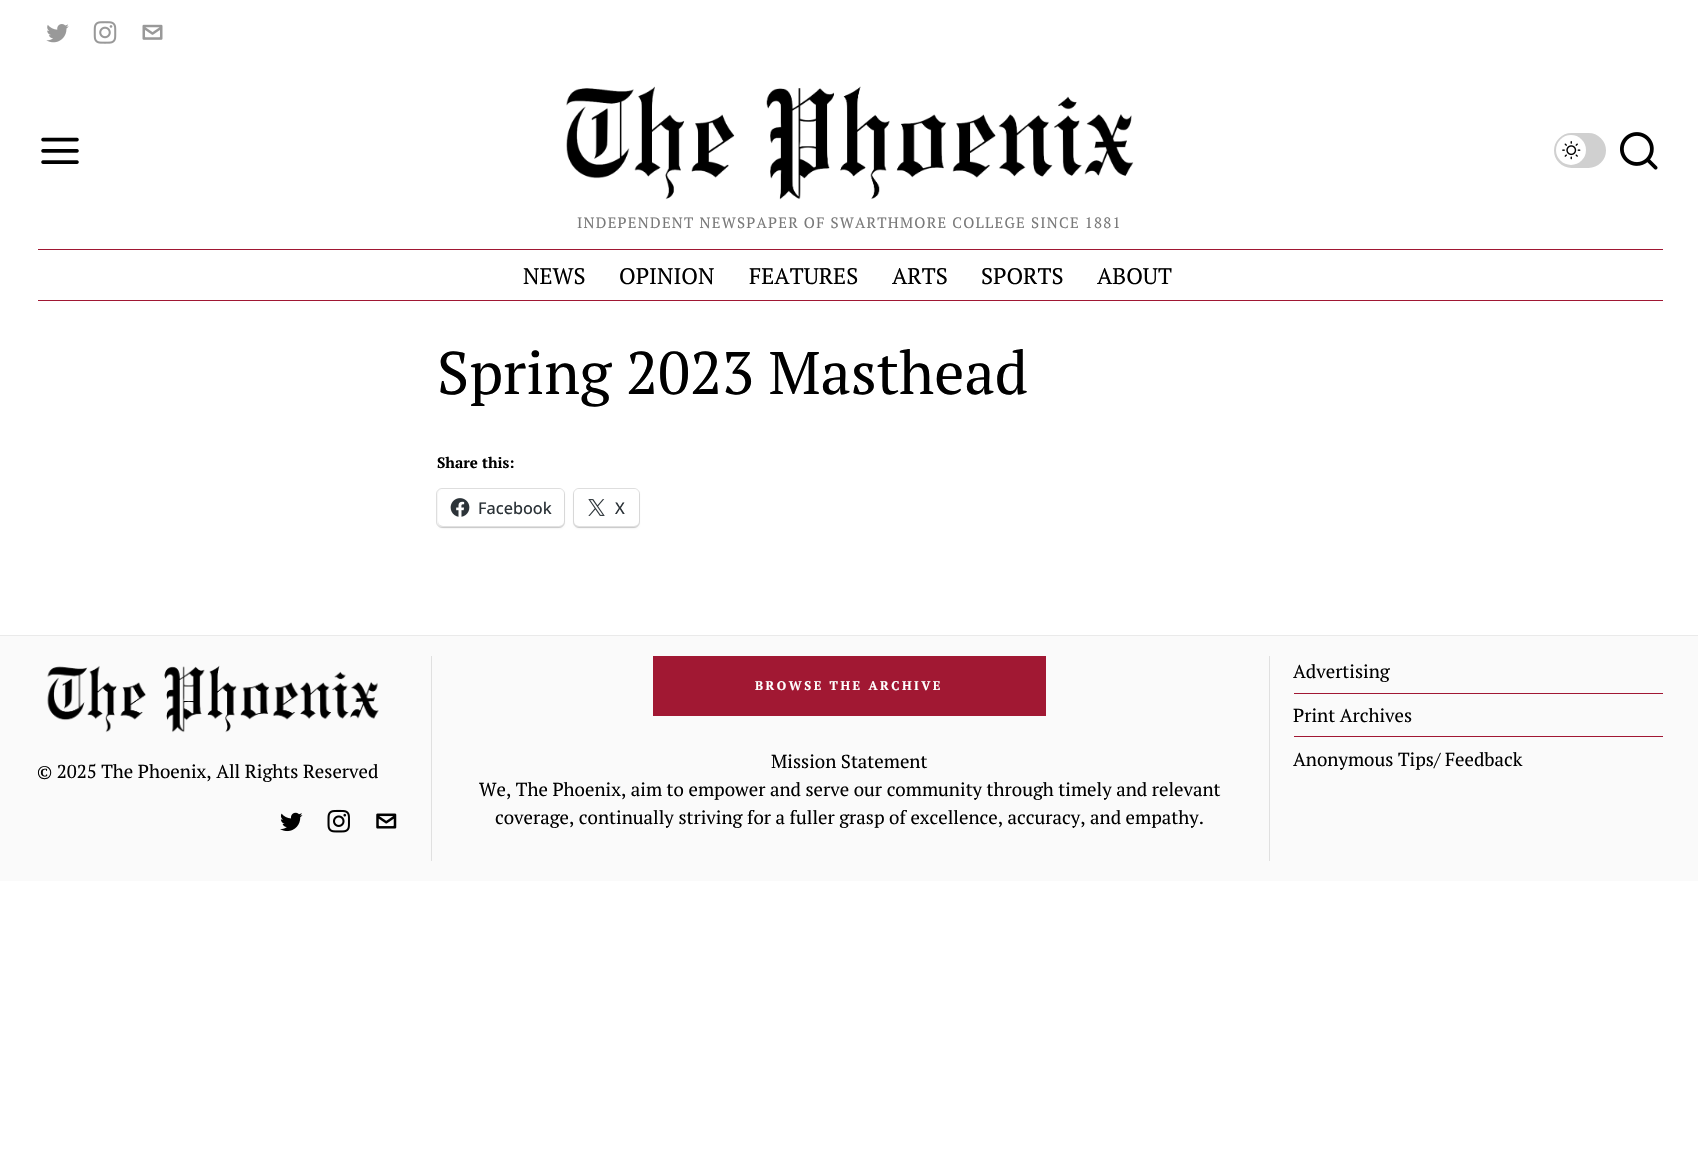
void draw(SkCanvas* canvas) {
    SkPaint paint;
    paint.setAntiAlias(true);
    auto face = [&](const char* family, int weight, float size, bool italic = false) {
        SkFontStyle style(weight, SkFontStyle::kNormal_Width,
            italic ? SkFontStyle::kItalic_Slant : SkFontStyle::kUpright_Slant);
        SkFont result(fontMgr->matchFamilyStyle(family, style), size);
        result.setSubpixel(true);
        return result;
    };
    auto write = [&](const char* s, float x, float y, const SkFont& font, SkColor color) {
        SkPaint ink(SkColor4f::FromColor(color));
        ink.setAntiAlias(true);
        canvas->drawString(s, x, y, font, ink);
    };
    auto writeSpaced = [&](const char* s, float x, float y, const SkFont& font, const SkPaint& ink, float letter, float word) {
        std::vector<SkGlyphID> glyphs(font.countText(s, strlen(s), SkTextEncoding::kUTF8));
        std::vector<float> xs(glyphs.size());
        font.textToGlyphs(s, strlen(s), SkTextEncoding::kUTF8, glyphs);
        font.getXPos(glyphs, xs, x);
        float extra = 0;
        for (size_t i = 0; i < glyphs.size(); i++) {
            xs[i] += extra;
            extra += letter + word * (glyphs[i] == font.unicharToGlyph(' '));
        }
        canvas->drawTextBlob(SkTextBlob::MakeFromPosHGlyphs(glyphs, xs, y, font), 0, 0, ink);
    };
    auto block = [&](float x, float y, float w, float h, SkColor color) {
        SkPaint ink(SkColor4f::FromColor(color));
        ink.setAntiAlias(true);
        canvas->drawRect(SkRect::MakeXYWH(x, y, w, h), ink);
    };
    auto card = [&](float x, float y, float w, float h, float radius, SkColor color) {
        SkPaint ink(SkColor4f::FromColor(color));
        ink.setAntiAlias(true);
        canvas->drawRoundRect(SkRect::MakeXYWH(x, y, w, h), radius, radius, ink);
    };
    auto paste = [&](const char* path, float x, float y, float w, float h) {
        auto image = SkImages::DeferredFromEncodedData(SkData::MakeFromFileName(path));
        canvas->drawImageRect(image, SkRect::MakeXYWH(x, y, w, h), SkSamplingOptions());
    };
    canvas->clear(SK_ColorWHITE);
    paste("pic1.png", 46, 24, 23, 19);
    paste("pic2.png", 93, 21, 24, 23);
    paste("pic3.png", 142, 24, 21, 16);
    paste("pic4.png", 41, 137, 38, 27);
    paint.setColor(SkColorSetRGB(208, 208, 208));
    canvas->drawRoundRect(SkRect::MakeXYWH(1555.5f, 134.5f, 49, 32), 16, 16, paint);
    paint.setStyle(SkPaint::kStroke_Style);
    paint.setStrokeWidth(3);
    canvas->drawRoundRect(SkRect::MakeXYWH(1555.5f, 134.5f, 49, 32), 16, 16, paint);
    paint.setStyle(SkPaint::kFill_Style);
    paint.setColor(SK_ColorWHITE);
    canvas->drawCircle(1571, 150, 15, paint);
    paste("pic5.png", 1562, 141, 19, 19);
    paste("pic6.png", 1620, 132, 38, 38);
    paste("pic7.png", 566, 86, 568, 114);
    auto kFont1 = face("PT Serif", 400, 15);
    paint.setColor(SkColorSetRGB(121, 121, 121));
    writeSpaced("INDEPENDENT NEWSPAPER OF SWARTHMORE COLLEGE SINCE 1881", 577, 228, kFont1, paint, 1.25f, 0);
    block(38, 249, 1625, 1, SkColorSetRGB(160, 23, 51));
    block(38, 300, 1625, 1, SkColorSetRGB(160, 23, 51));
    auto kFont2 = face("PT Serif", 400, 22.5f);
    write("NEWS", 523, 284, kFont2, SK_ColorBLACK);
    write("OPINION", 619, 284, kFont2, SK_ColorBLACK);
    write("FEATURES", 749, 284, kFont2, SK_ColorBLACK);
    write("ARTS", 892, 284, kFont2, SK_ColorBLACK);
    write("SPORTS", 981, 284, kFont2, SK_ColorBLACK);
    write("ABOUT", 1097, 284, kFont2, SK_ColorBLACK);
    auto kFont3 = face("PT Serif", 400, 60);
    write("Spring 2023 Masthead", 437, 394, kFont3, SK_ColorBLACK);
    auto kFont4 = face("PT Serif", 700, 15);
    write("Share this:", 437, 468, kFont4, SK_ColorBLACK);
    paint.setStyle(SkPaint::kStroke_Style);
    paint.setStrokeWidth(1);
    paint.setColor(SkColorSetRGB(224, 224, 224));
    canvas->drawRoundRect(SkRect::MakeXYWH(436.5f, 488.5f, 128, 39), 5.5f, 5.5f, paint);
    paint.setStyle(SkPaint::kFill_Style);
    paint.setColor(SkColorSetARGB(31, 0, 0, 0));
    paint.setMaskFilter(SkMaskFilter::MakeBlur(kNormal_SkBlurStyle, 1));
    canvas->drawRoundRect(SkRect::MakeXYWH(438, 490, 126, 38), 5, 5, paint);
    paint.setMaskFilter(nullptr);
    card(438, 489, 126, 37, 5, SK_ColorWHITE);
    paste("pic8.png", 450, 498, 20, 19);
    auto kFont5 = face("Open Sans", 500, 16.25f);
    write("Facebook", 478, 514, kFont5, SkColorSetRGB(44, 51, 56));
    paint.setStyle(SkPaint::kStroke_Style);
    paint.setColor(SkColorSetRGB(224, 224, 224));
    canvas->drawRoundRect(SkRect::MakeXYWH(573.5f, 488.5f, 66, 39), 5.5f, 5.5f, paint);
    paint.setStyle(SkPaint::kFill_Style);
    paint.setColor(SkColorSetARGB(31, 0, 0, 0));
    paint.setMaskFilter(SkMaskFilter::MakeBlur(kNormal_SkBlurStyle, 1));
    canvas->drawRoundRect(SkRect::MakeXYWH(574, 490, 65, 38), 5, 5, paint);
    paint.setMaskFilter(nullptr);
    card(574, 489, 65, 37, 5, SK_ColorWHITE);
    paste("pic9.png", 588, 499, 17, 17);
    write("X", 615, 514, kFont5, SkColorSetRGB(44, 51, 56));
    block(0, 636, 1698, 245, SkColorSetRGB(250, 250, 250));
    block(0, 635, 1698, 1, SkColorSetRGB(234, 234, 234));
    paste("pic10.png", 47, 665, 332, 68);
    auto kFont6 = face("PT Serif", 400, 18.75f);
    write("© 2025 The Phoenix, All Rights Reserved", 37, 778, kFont6, SK_ColorBLACK);
    paste("pic11.png", 280, 812, 23, 20);
    paste("pic12.png", 327, 809, 23, 24);
    paste("pic13.png", 376, 813, 21, 16);
    block(431, 656, 1, 205, SkColorSetRGB(224, 224, 224));
    block(653, 656, 393, 60, SkColorSetRGB(161, 24, 51));
    auto kFont7 = face("PT Serif", 700, 12.5f);
    paint.setColor(SK_ColorWHITE);
    writeSpaced("BROWSE THE ARCHIVE", 755, 690, kFont7, paint, 2.5f, 0);
    write("Mission Statement", 771, 768, kFont6, SK_ColorBLACK);
    write("We, The Phoenix, aim to empower and serve our community through timely and relevant", 479, 796, kFont6, SK_ColorBLACK);
    write("coverage, continually striving for a fuller grasp of excellence, accuracy, and empathy.", 495, 824, kFont6, SK_ColorBLACK);
    block(1269, 656, 1, 205, SkColorSetRGB(224, 224, 224));
    write("Advertising", 1293, 678, kFont6, SK_ColorBLACK);
    block(1294, 693, 369, 1, SkColorSetRGB(161, 23, 51));
    write("Print Archives", 1293, 722, kFont6, SK_ColorBLACK);
    block(1294, 736, 369, 1, SkColorSetRGB(161, 23, 51));
    write("Anonymous Tips/ Feedback", 1293, 766, kFont6, SK_ColorBLACK);
}
